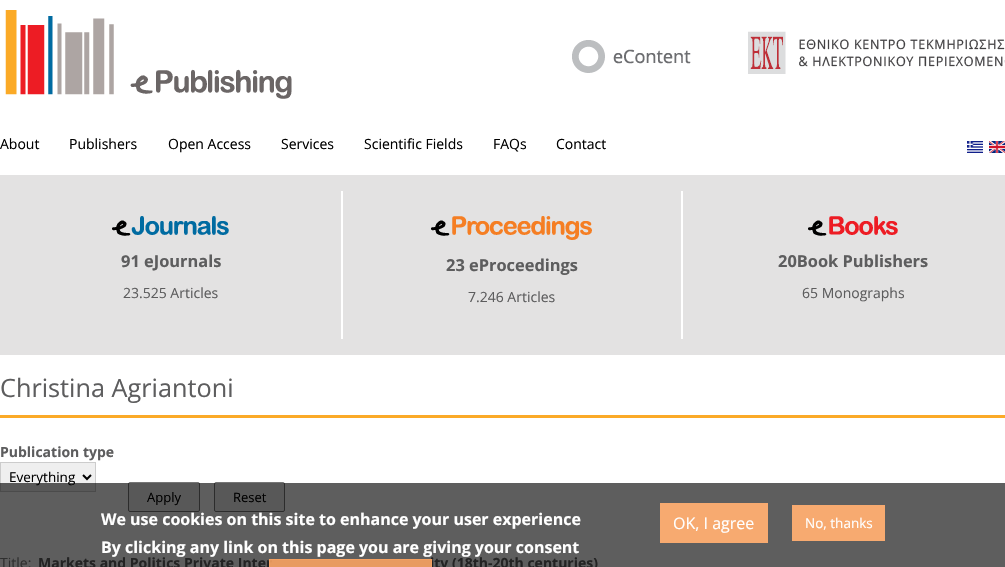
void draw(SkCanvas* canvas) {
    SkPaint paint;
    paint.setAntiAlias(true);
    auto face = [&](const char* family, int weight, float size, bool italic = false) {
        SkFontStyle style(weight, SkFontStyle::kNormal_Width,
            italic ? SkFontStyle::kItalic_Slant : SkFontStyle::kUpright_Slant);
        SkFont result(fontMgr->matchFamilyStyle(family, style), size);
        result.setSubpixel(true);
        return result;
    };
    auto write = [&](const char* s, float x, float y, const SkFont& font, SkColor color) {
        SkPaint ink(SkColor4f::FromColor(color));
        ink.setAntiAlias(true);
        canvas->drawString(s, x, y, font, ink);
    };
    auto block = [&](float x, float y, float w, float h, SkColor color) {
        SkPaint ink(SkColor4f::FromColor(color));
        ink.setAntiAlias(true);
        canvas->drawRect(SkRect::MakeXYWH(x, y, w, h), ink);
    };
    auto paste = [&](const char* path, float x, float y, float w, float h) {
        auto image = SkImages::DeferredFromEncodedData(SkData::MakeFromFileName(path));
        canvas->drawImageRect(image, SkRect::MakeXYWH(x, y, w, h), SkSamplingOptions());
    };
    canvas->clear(SK_ColorWHITE);
    paste("pic1.png", 5, 10, 287, 89);
    paste("pic2.png", 572, 40, 119, 33);
    paste("pic3.png", 748, 31, 257, 43);
    auto kFont1 = face("Open Sans", 400, 14);
    write("About", 0, 149, kFont1, SK_ColorBLACK);
    write("Publishers", 69, 149, kFont1, SK_ColorBLACK);
    write("Open Access", 168, 149, kFont1, SK_ColorBLACK);
    write("Services", 281, 149, kFont1, SK_ColorBLACK);
    write("Scientific Fields", 364, 149, kFont1, SK_ColorBLACK);
    write("FAQs", 493, 149, kFont1, SK_ColorBLACK);
    write("Contact", 556, 149, kFont1, SK_ColorBLACK);
    paste("pic4.png", 967, 141, 16, 12);
    paste("pic5.png", 989, 141, 16, 12);
    block(0, 175, 1005, 180, SkColorSetRGB(227, 226, 226));
    paste("pic6.png", 112, 216, 117, 20);
    auto kFont2 = face("Open Sans", 700, 16.4f);
    write("91 eJournals", 121, 267, kFont2, SkColorSetRGB(93, 93, 94));
    write("23.525 Articles", 123, 298, kFont1, SkColorSetRGB(93, 93, 94));
    block(681, 191, 2, 148, SK_ColorWHITE);
    block(341, 191, 2, 148, SK_ColorWHITE);
    paste("pic7.png", 431, 216, 161, 24);
    write("23 eProceedings", 446, 271, kFont2, SkColorSetRGB(93, 93, 94));
    write("7.246 Articles", 468, 302, kFont1, SkColorSetRGB(93, 93, 94));
    paste("pic8.png", 808, 216, 90, 20);
    write("20Book Publishers", 778, 267, kFont2, SkColorSetRGB(93, 93, 94));
    write("65 Monographs", 802, 298, kFont1, SkColorSetRGB(93, 93, 94));
    block(0, 415, 1005, 3, SkColorSetRGB(251, 170, 39));
    auto kFont3 = face("Open Sans", 400, 25.25f);
    write("Christina Agriantoni", 0, 397, kFont3, SkColorSetRGB(93, 93, 94));
    auto kFont4 = face("Open Sans", 700, 14);
    write("Publication type", 0, 457, kFont4, SkColorSetRGB(93, 93, 94));
    paint.setColor(SkColorSetRGB(239, 239, 239));
    canvas->drawRect(SkRect::MakeXYWH(0.5f, 462.5f, 95, 29), paint);
    paint.setStyle(SkPaint::kStroke_Style);
    paint.setStrokeWidth(1);
    paint.setColor(SkColorSetRGB(204, 204, 204));
    canvas->drawRect(SkRect::MakeXYWH(0.5f, 462.5f, 95, 29), paint);
    paint.setStrokeWidth(2);
    paint.setColor(SK_ColorBLACK);
    canvas->drawPath(SkPathBuilder().moveTo(83, 475).lineTo(87, 479).lineTo(91, 475).detach(), paint);
    auto kFont5 = face("Open Sans", 400, 13.5f);
    write("Everything", 9, 482, kFont5, SK_ColorBLACK);
    paint.setStyle(SkPaint::kFill_Style);
    paint.setColor(SkColorSetRGB(239, 239, 239));
    canvas->drawRoundRect(SkRect::MakeXYWH(128.5f, 482.5f, 71, 29), 1.5f, 1.5f, paint);
    paint.setStyle(SkPaint::kStroke_Style);
    paint.setStrokeWidth(1);
    paint.setColor(SkColorSetRGB(118, 118, 118));
    canvas->drawRoundRect(SkRect::MakeXYWH(128.5f, 482.5f, 71, 29), 1.5f, 1.5f, paint);
    auto kFont6 = face("Open Sans", 400, 13);
    write("Apply", 147, 502, kFont6, SK_ColorBLACK);
    paint.setStyle(SkPaint::kFill_Style);
    paint.setColor(SkColorSetRGB(239, 239, 239));
    canvas->drawRoundRect(SkRect::MakeXYWH(214.5f, 482.5f, 70, 29), 1.5f, 1.5f, paint);
    paint.setStyle(SkPaint::kStroke_Style);
    paint.setColor(SkColorSetRGB(118, 118, 118));
    canvas->drawRoundRect(SkRect::MakeXYWH(214.5f, 482.5f, 70, 29), 1.5f, 1.5f, paint);
    write("Reset", 233, 502, kFont6, SK_ColorBLACK);
    write("Title:", 0, 568, kFont1, SkColorSetRGB(127, 127, 127));
    write("Markets and Politics Private Inter", 38, 568, kFont4, SkColorSetRGB(93, 93, 94));
    write("ity (18th-20th centuries)", 430, 568, kFont4, SkColorSetRGB(93, 93, 94));
    block(0, 483, 1005, 84, SkColorSetARGB(161, 0, 0, 0));
    auto kFont7 = face("Open Sans", 700, 16);
    write("We use cookies on this site to enhance your user experience", 101, 525, kFont7, SK_ColorWHITE);
    write("By clicking any link on this page you are giving your consent", 101, 553, kFont7, SK_ColorWHITE);
    block(269, 559, 163, 8, SkColorSetARGB(230, 246, 161, 96));
    paint.setColor(SkColorSetARGB(230, 246, 161, 96));
    canvas->drawRect(SkRect::MakeXYWH(269.5f, 559.5f, 162, 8), paint);
    block(660, 503, 108, 40, SkColorSetRGB(247, 170, 112));
    auto kFont8 = face("Open Sans", 400, 16);
    write("OK, I agree", 673, 529, kFont8, SK_ColorWHITE);
    block(792, 505, 93, 36, SkColorSetRGB(247, 170, 112));
    write("No, thanks", 805, 528, kFont5, SK_ColorWHITE);
}
